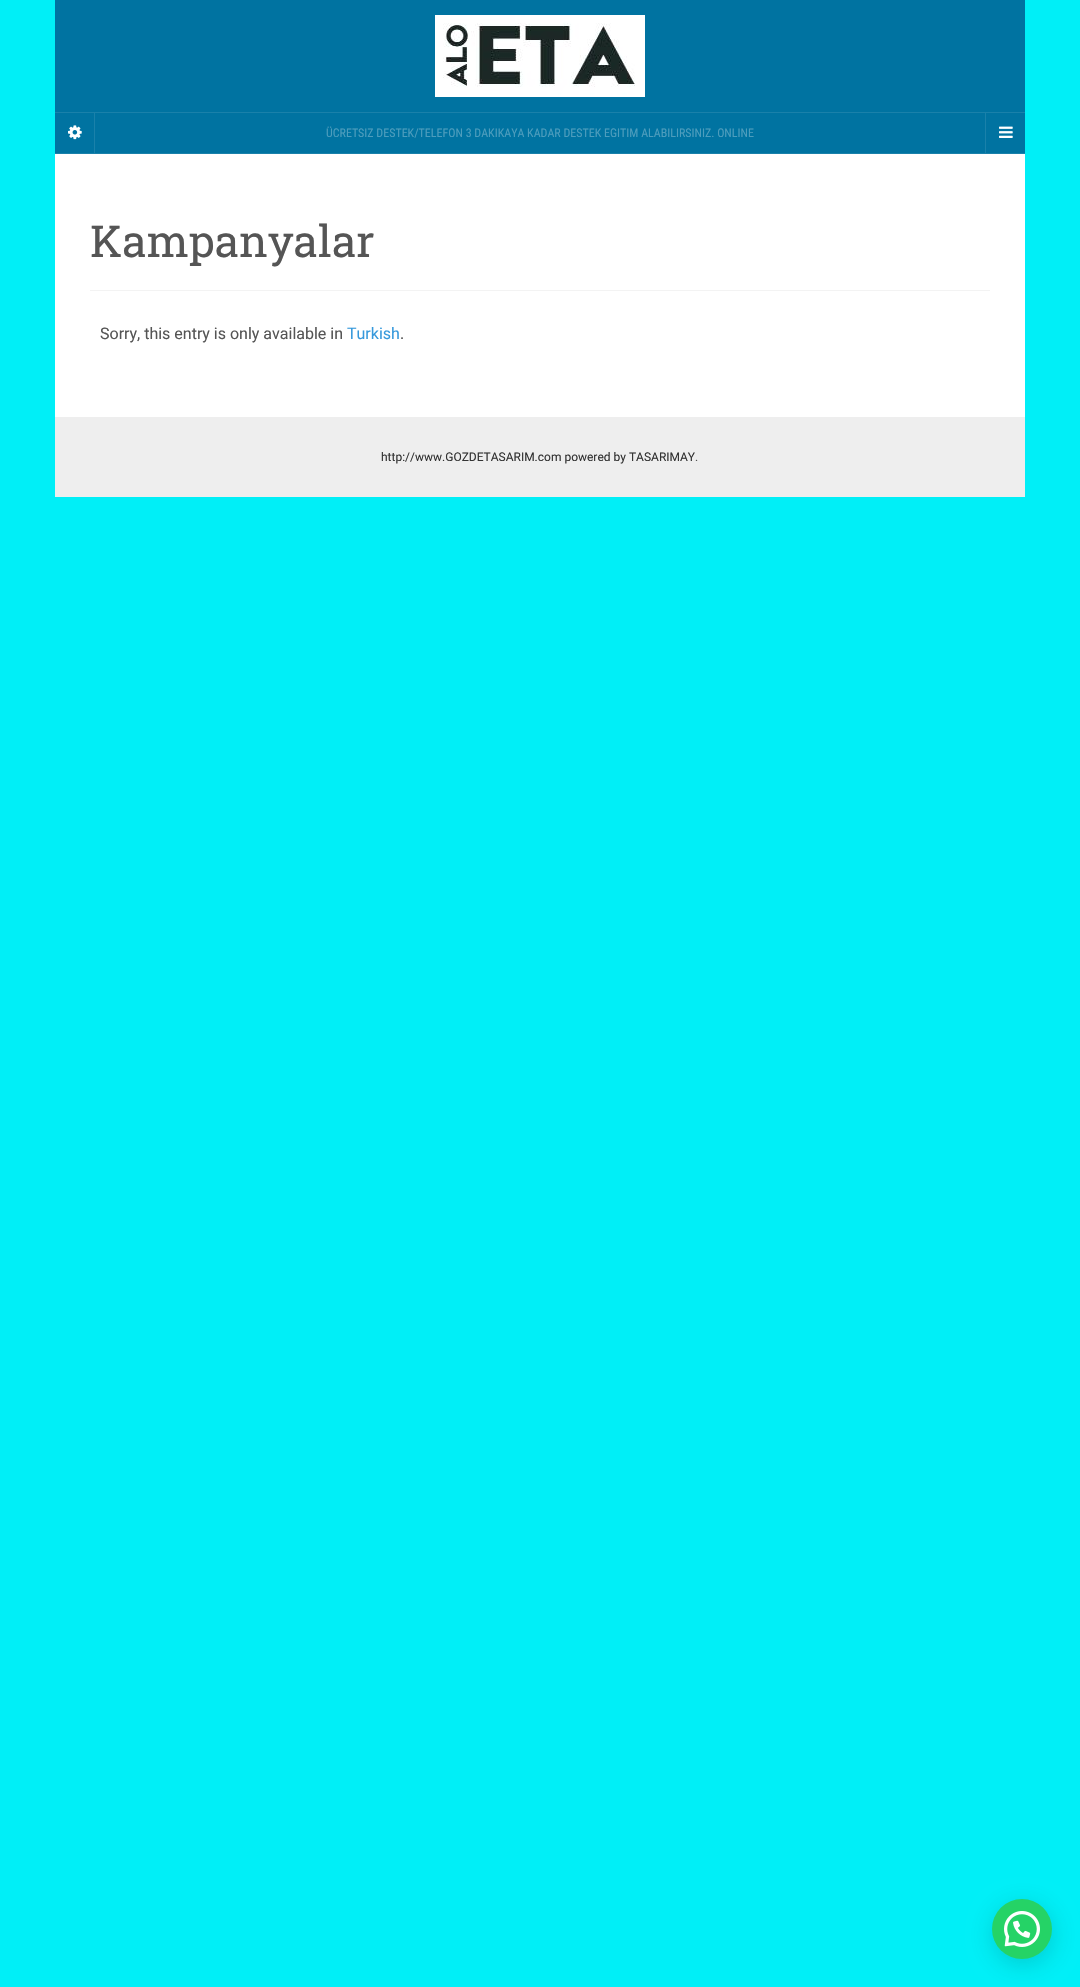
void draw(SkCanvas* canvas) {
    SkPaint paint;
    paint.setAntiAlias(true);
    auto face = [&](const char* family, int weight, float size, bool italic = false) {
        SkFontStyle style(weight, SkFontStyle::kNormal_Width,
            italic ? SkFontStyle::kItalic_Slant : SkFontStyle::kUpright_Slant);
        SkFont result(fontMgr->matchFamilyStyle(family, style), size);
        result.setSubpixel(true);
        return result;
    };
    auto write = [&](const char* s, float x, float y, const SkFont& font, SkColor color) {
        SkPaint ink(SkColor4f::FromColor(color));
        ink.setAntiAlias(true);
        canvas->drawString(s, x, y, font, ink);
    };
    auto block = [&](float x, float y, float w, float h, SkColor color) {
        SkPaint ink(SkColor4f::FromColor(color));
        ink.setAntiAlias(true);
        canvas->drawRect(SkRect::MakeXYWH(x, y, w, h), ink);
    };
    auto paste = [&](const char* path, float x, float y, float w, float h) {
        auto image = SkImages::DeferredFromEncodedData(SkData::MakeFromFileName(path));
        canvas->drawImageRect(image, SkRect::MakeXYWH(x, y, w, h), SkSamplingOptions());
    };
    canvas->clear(SkColorSetRGB(0, 239, 247));
    block(55, 0, 970, 153, SkColorSetRGB(0, 115, 161));
    block(94, 113, 1, 40, SkColorSetRGB(26, 129, 170));
    paste("pic1.png", 68, 125, 14, 15);
    block(55, 153, 970, 1, SkColorSetRGB(26, 129, 170));
    block(55, 112, 970, 1, SkColorSetRGB(26, 129, 170));
    paste("pic2.png", 435, 15, 210, 82);
    auto kFont1 = face("Roboto Condensed", 400, 12);
    write("ÜCRETSIZ DESTEK/TELEFON 3 DAKIKAYA KADAR DESTEK EGITIM ALABILIRSINIZ. ONLINE", 326, 137, kFont1, SkColorSetRGB(77, 157, 189));
    block(985, 113, 1, 40, SkColorSetRGB(26, 129, 170));
    paste("pic3.png", 999, 126, 14, 12);
    block(55, 154, 970, 263, SK_ColorWHITE);
    block(90, 290, 900, 1, SkColorSetRGB(243, 243, 243));
    auto kFont2 = face("Roboto Slab", 400, 44);
    write("Kampanyalar", 90, 257, kFont2, SkColorSetRGB(85, 85, 85));
    auto kFont3 = face("Roboto", 400, 16);
    write("Sorry, this entry is only available in", 100, 339, kFont3, SkColorSetRGB(85, 85, 85));
    write("Turkish", 347, 339, kFont3, SkColorSetRGB(54, 153, 220));
    write(".", 400, 339, kFont3, SkColorSetRGB(85, 85, 85));
    block(55, 417, 970, 80, SkColorSetRGB(238, 238, 238));
    auto kFont4 = face("Roboto", 400, 12);
    write("http://www.GOZDETASARIM.com powered by TASARIMAY", 381, 461, kFont4, SkColorSetRGB(51, 51, 51));
    write(".", 695, 461, kFont4, SkColorSetRGB(85, 85, 85));
    paint.setColor(SkColorSetARGB(61, 7, 94, 84));
    paint.setMaskFilter(SkMaskFilter::MakeBlur(kNormal_SkBlurStyle, 12));
    canvas->drawRoundRect(SkRect::MakeXYWH(993, 1905, 60, 60), 30, 30, paint);
    paint.setMaskFilter(nullptr);
    paint.setColor(SkColorSetRGB(37, 211, 102));
    canvas->drawCircle(1022, 1929, 30, paint);
    paste("pic4.png", 1004, 1911, 36, 36);
}
